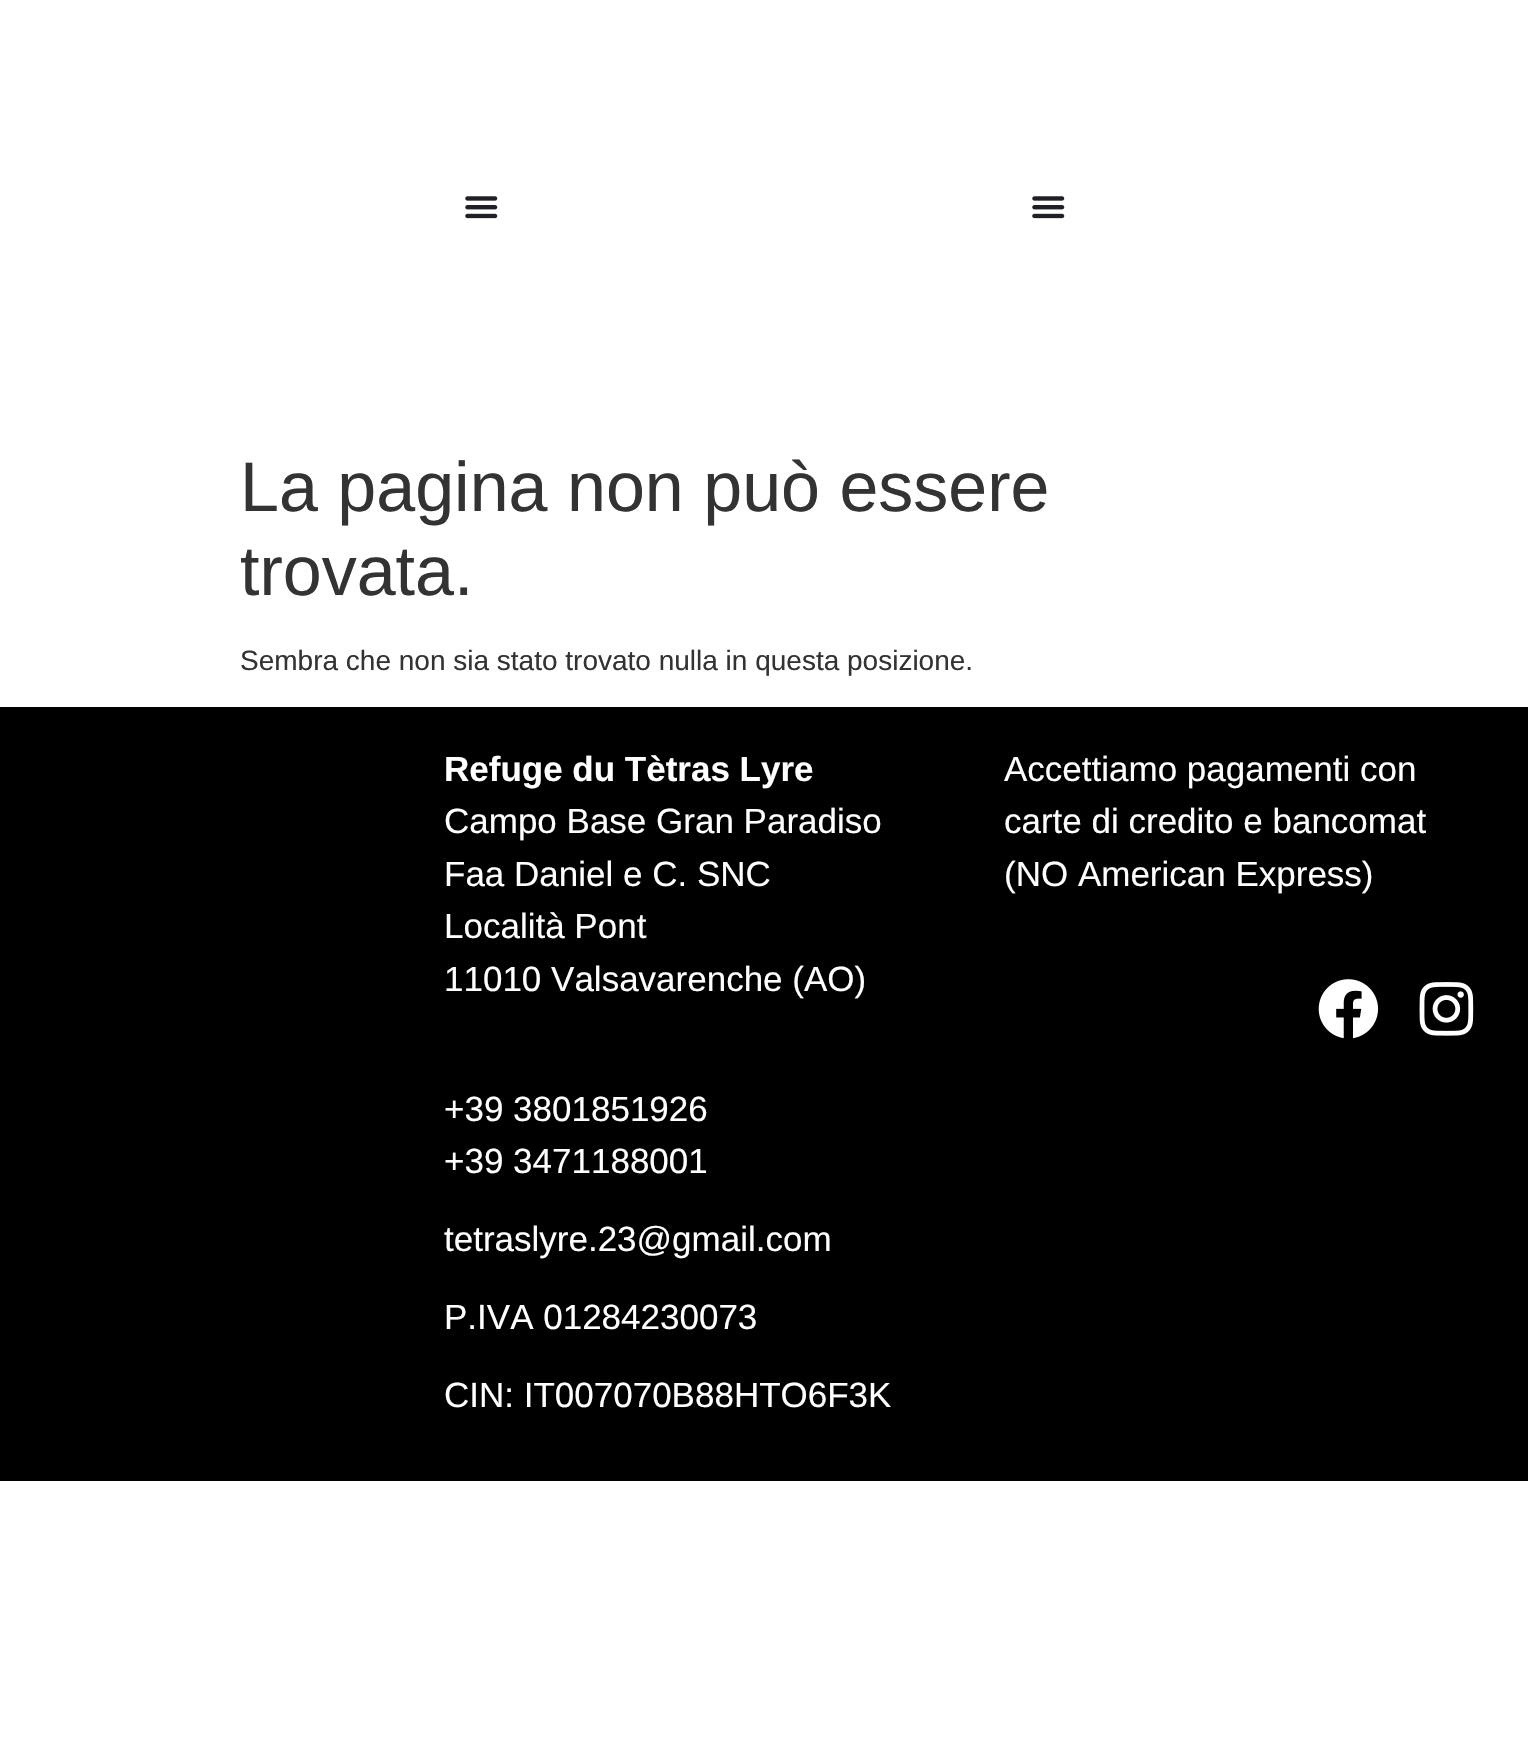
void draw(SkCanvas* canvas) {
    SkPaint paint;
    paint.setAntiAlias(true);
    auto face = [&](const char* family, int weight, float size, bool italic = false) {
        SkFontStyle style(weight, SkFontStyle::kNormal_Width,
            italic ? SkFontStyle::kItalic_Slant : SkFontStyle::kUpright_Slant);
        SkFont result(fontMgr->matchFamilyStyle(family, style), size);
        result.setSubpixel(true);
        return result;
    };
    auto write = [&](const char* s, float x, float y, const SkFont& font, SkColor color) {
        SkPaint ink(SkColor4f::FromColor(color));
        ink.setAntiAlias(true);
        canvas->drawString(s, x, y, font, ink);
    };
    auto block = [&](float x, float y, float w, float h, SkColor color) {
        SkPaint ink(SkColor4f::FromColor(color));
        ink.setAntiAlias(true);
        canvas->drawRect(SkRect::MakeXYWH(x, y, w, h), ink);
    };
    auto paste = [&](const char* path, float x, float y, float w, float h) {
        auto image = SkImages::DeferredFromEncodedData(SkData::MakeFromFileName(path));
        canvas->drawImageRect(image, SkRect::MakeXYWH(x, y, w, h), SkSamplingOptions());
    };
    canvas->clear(SK_ColorWHITE);
    paste("pic1.png", 465, 196, 33, 23);
    paste("pic1.png", 1032, 196, 33, 23);
    auto kFont1 = face("Liberation Sans", 400, 70);
    write("La pagina non può essere", 240, 511, kFont1, SkColorSetRGB(51, 51, 51));
    write("trovata.", 240, 595, kFont1, SkColorSetRGB(51, 51, 51));
    auto kFont2 = face("Liberation Sans", 400, 28);
    write("Sembra che non sia stato trovato nulla in questa posizione.", 240, 670, kFont2, SkColorSetRGB(51, 51, 51));
    block(0, 707, 1528, 774, SK_ColorBLACK);
    auto kFont3 = face("Liberation Sans", 700, 35);
    write("Refuge du Tètras Lyre", 444, 781, kFont3, SK_ColorWHITE);
    auto kFont4 = face("Liberation Sans", 400, 35);
    write("Campo Base Gran Paradiso", 444, 833, kFont4, SK_ColorWHITE);
    write("Faa Daniel e C. SNC", 444, 886, kFont4, SK_ColorWHITE);
    write("Località Pont", 444, 938, kFont4, SK_ColorWHITE);
    write("11010 Valsavarenche (AO)", 444, 991, kFont4, SK_ColorWHITE);
    write("+39 3801851926", 444, 1121, kFont4, SK_ColorWHITE);
    write("+39 3471188001", 444, 1173, kFont4, SK_ColorWHITE);
    write("tetraslyre.23@gmail.com", 444, 1251, kFont4, SK_ColorWHITE);
    write("P.IVA 01284230073", 444, 1329, kFont4, SK_ColorWHITE);
    write("CIN: IT007070B88HTO6F3K", 444, 1407, kFont4, SK_ColorWHITE);
    write("Accettiamo pagamenti con", 1004, 781, kFont4, SK_ColorWHITE);
    write("carte di credito e bancomat", 1004, 833, kFont4, SK_ColorWHITE);
    write("(NO American Express)", 1004, 886, kFont4, SK_ColorWHITE);
    paste("pic2.png", 1318, 979, 61, 60);
    paste("pic3.png", 1419, 982, 55, 54);
}
